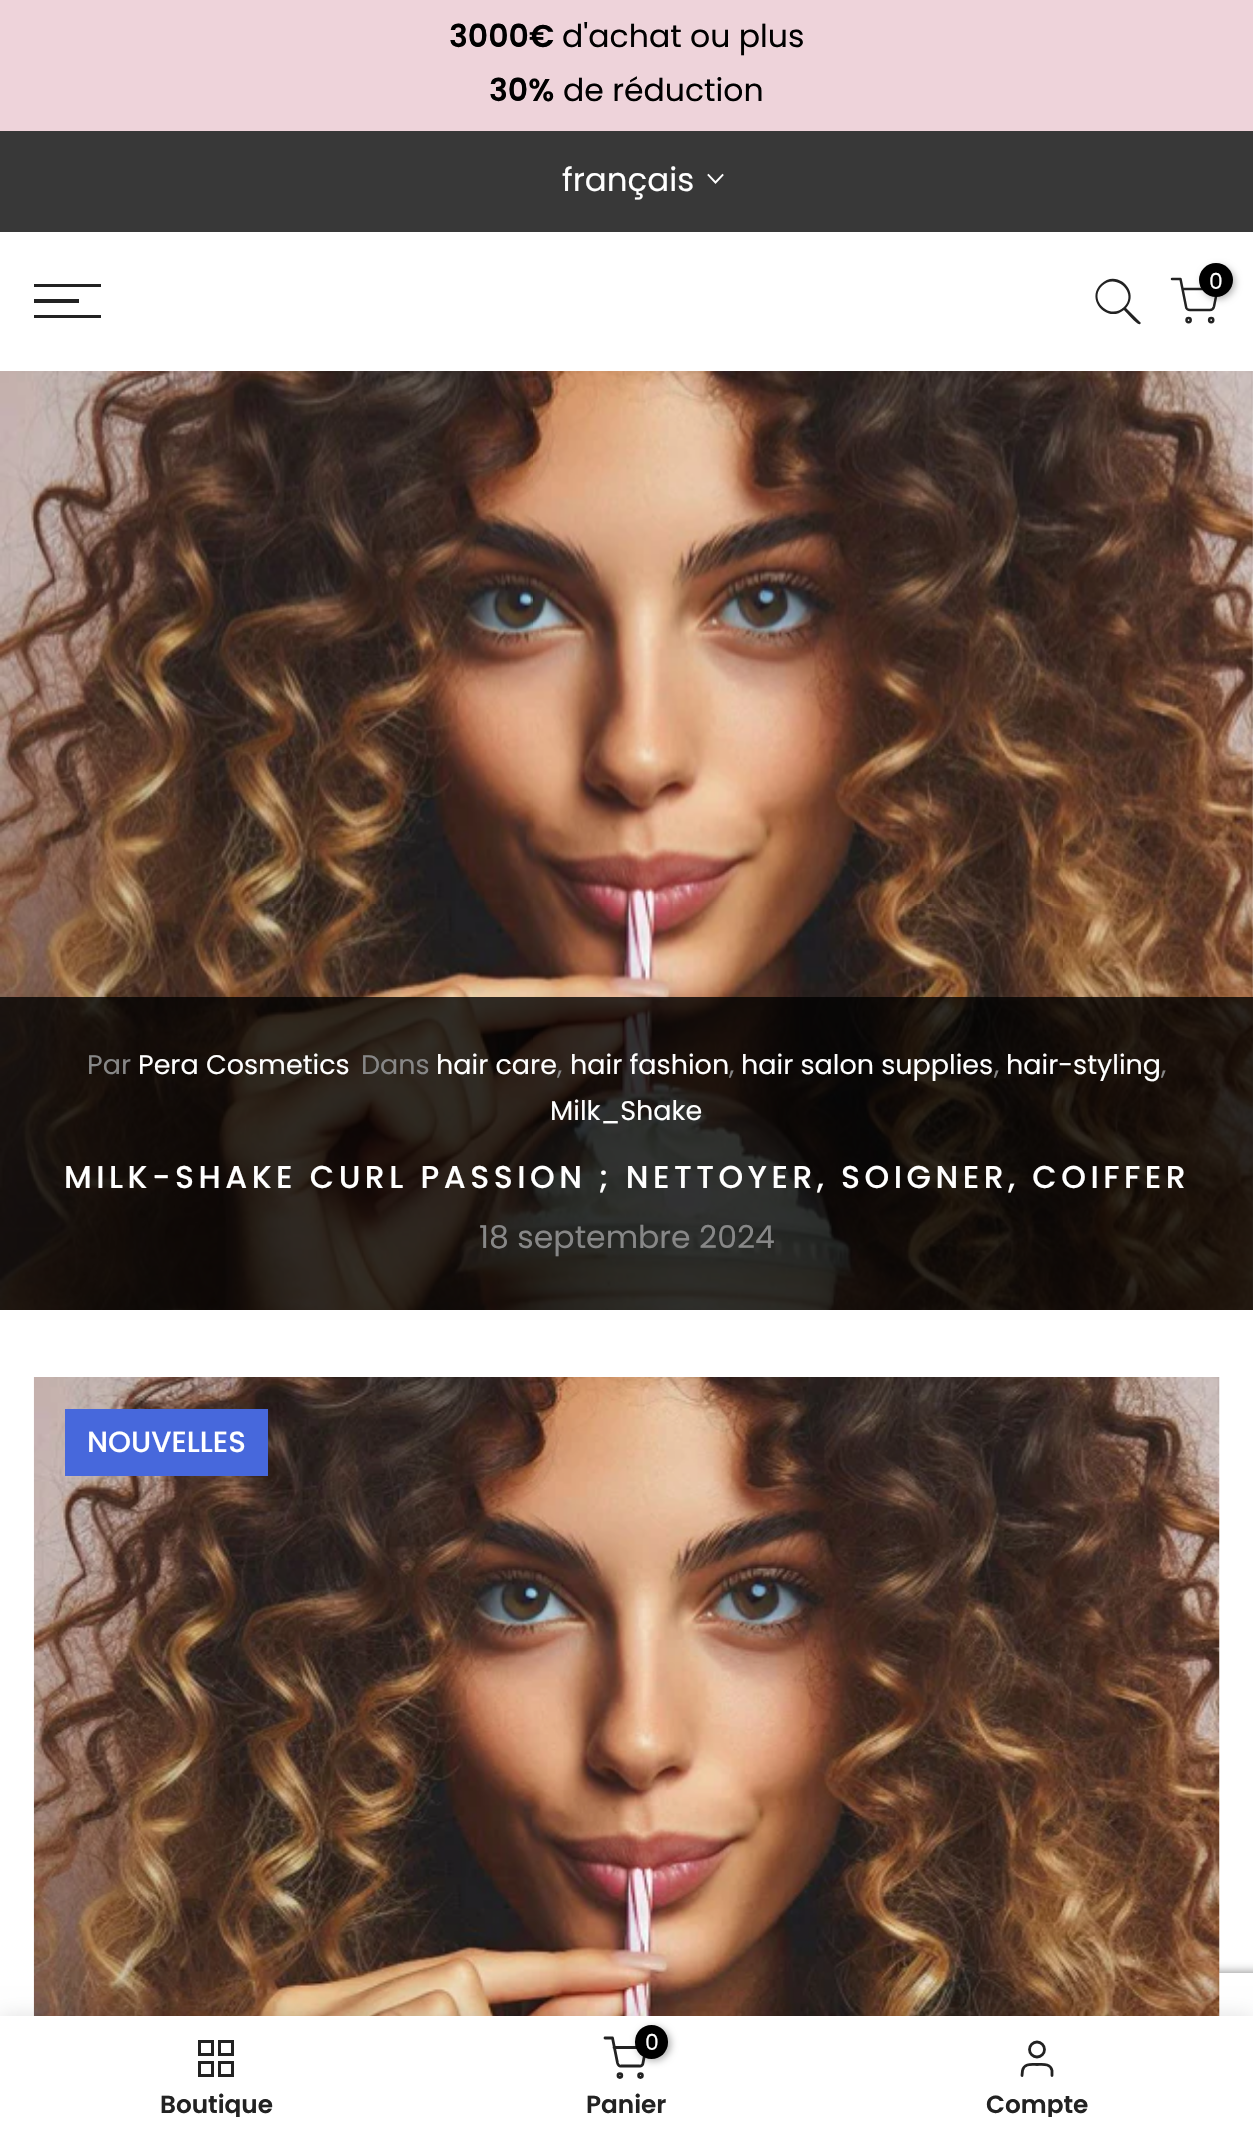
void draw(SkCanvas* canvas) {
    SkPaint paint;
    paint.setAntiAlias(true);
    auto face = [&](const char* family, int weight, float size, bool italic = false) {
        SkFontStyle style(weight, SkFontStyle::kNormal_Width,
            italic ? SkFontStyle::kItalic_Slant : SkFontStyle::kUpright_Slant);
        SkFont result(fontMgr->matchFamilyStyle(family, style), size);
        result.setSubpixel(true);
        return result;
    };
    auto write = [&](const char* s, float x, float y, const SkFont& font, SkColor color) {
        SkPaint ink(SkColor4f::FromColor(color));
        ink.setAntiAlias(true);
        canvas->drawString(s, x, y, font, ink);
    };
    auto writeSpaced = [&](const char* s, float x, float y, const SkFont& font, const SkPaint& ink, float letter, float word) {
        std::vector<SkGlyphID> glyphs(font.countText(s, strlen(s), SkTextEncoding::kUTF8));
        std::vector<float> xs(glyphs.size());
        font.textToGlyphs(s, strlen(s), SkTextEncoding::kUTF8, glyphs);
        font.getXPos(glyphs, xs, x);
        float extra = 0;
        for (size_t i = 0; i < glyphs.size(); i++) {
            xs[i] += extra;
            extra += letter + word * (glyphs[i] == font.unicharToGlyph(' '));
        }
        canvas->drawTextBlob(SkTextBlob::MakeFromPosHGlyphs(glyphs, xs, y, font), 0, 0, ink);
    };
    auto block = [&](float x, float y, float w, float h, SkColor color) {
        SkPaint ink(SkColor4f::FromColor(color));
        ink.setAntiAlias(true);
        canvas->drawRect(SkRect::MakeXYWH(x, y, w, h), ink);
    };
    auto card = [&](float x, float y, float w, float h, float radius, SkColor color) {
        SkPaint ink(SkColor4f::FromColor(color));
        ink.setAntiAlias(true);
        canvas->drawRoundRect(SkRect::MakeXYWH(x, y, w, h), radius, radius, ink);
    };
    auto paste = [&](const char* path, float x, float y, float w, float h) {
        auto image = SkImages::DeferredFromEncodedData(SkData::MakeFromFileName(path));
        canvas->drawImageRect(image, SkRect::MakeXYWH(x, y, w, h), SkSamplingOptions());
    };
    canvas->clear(SK_ColorWHITE);
    block(0, 0, 1253, 131, SkColorSetRGB(238, 211, 218));
    auto kFont1 = face("Poppins", 600, 31.5f);
    write("3000€", 449, 47, kFont1, SK_ColorBLACK);
    auto kFont2 = face("Poppins", 400, 31.5f);
    write("d'achat ou plus", 562, 47, kFont2, SK_ColorBLACK);
    write("30%", 489, 101, kFont1, SK_ColorBLACK);
    write("de réduction", 563, 101, kFont2, SK_ColorBLACK);
    block(0, 131, 1253, 101, SkColorSetRGB(56, 56, 56));
    auto kFont3 = face("Poppins", 400, 32.5f);
    write("français", 562, 191, kFont3, SK_ColorWHITE);
    paint.setStyle(SkPaint::kStroke_Style);
    paint.setStrokeWidth(1.9f);
    paint.setStrokeCap(SkPaint::kSquare_Cap);
    paint.setColor(SK_ColorWHITE);
    canvas->drawPath(SkPathBuilder().moveTo(722.5f, 175).lineTo(715.5f, 182.5f).lineTo(708.5f, 175).detach(), paint);
    paint.setStyle(SkPaint::kFill_Style);
    paint.setColor(SkColorSetRGB(34, 34, 34));
    canvas->drawPath(SkPathBuilder(SkPathFillType::kEvenOdd).moveTo(1124, 307).cubicTo(1110, 321, 1088, 300, 1102, 286).cubicTo(1116, 272, 1138, 293, 1124, 307).close().moveTo(1124, 310).cubicTo(1107, 324, 1085, 299, 1101, 284).cubicTo(1117, 268, 1141, 292, 1126, 308).lineTo(1141, 323).lineTo(1140, 324).cubicTo(1138, 326, 1126, 312, 1124, 310).close().detach(), paint);
    paint.setStyle(SkPaint::kStroke_Style);
    paint.setStrokeWidth(2.5f);
    paint.setStrokeCap(SkPaint::kRound_Cap);
    paint.setStrokeJoin(SkPaint::kRound_Join);
    canvas->drawPath(SkPathBuilder().moveTo(1172, 279).lineTo(1180.5f, 279).lineTo(1186, 306.5f).cubicTo(1186, 308.5f, 1188, 310, 1190, 310).lineTo(1210, 310).cubicTo(1212, 310, 1213.5f, 308.5f, 1214, 306.5f).lineTo(1217.5f, 289).lineTo(1182.5f, 289).detach(), paint);
    paint.setStyle(SkPaint::kFill_Style);
    paint.setColor(SkColorSetARGB(77, 0, 0, 0));
    paint.setMaskFilter(SkMaskFilter::MakeBlur(kNormal_SkBlurStyle, 3.5f));
    canvas->drawRoundRect(SkRect::MakeXYWH(1202, 266, 33, 33), 16.5f, 16.5f, paint);
    paint.setMaskFilter(nullptr);
    paint.setColor(SK_ColorBLACK);
    canvas->drawCircle(1216, 280, 17, paint);
    auto kFont4 = face("Poppins", 400, 22);
    write("0", 1209, 289, kFont4, SK_ColorWHITE);
    paint.setStyle(SkPaint::kStroke_Style);
    paint.setStrokeCap(SkPaint::kButt_Cap);
    paint.setStrokeJoin(SkPaint::kMiter_Join);
    paint.setColor(SkColorSetRGB(34, 34, 34));
    canvas->drawCircle(1188.6f, 320.1f, 2.1f, paint);
    canvas->drawCircle(1211.2f, 320.1f, 2.1f, paint);
    block(34, 284, 67, 3, SkColorSetRGB(34, 34, 34));
    block(34, 299, 45, 4, SkColorSetRGB(34, 34, 34));
    block(34, 315, 67, 3, SkColorSetRGB(34, 34, 34));
    paste("pic1.png", 0, 371, 1253, 939);
    block(0, 997, 1253, 313, SkColorSetARGB(204, 0, 0, 0));
    auto kFont5 = face("Poppins", 400, 27);
    write("Par", 87, 1074, kFont5, SkColorSetRGB(135, 135, 135));
    write("Pera Cosmetics", 138, 1074, kFont5, SK_ColorWHITE);
    write("Dans", 361, 1074, kFont5, SkColorSetRGB(135, 135, 135));
    write("hair care", 436, 1074, kFont5, SK_ColorWHITE);
    write(",", 557, 1074, kFont5, SkColorSetRGB(135, 135, 135));
    write("hair fashion", 570, 1074, kFont5, SK_ColorWHITE);
    write(",", 729, 1074, kFont5, SkColorSetRGB(135, 135, 135));
    write("hair salon supplies", 741, 1074, kFont5, SK_ColorWHITE);
    write(",", 994, 1074, kFont5, SkColorSetRGB(135, 135, 135));
    write("hair-styling", 1006, 1074, kFont5, SK_ColorWHITE);
    write(",", 1161, 1074, kFont5, SkColorSetRGB(135, 135, 135));
    write("Milk_Shake", 550, 1120, kFont5, SK_ColorWHITE);
    auto kFont6 = face("Poppins", 500, 31.5f);
    paint.setStyle(SkPaint::kFill_Style);
    paint.setColor(SK_ColorWHITE);
    writeSpaced("MILK-SHAKE CURL PASSION ; NETTOYER, SOIGNER, COIFFER", 64, 1188, kFont6, paint, 4.5f, 0);
    write("18 septembre 2024", 479, 1248, kFont2, SkColorSetRGB(135, 135, 135));
    canvas->save();
    canvas->clipPath(SkPathBuilder(SkPathFillType::kEvenOdd).moveTo(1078, 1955).lineTo(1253, 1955).lineTo(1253, 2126).lineTo(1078, 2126).close().moveTo(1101, 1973).lineTo(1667, 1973).cubicTo(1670, 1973, 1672, 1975, 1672, 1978).lineTo(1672, 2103).cubicTo(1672, 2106, 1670, 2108, 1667, 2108).lineTo(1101, 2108).cubicTo(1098, 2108, 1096, 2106, 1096, 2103).lineTo(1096, 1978).cubicTo(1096, 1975, 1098, 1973, 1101, 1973).close().detach(), true);
    paint.setColor(SkColorSetRGB(128, 128, 128));
    paint.setMaskFilter(SkMaskFilter::MakeBlur(kNormal_SkBlurStyle, 5.5f));
    canvas->drawRoundRect(SkRect::MakeXYWH(1096, 1973, 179, 135), 5, 5, paint);
    paint.setMaskFilter(nullptr);
    canvas->restore();
    paste("pic2.png", 33, 1377, 1187, 639);
    block(65, 1409, 203, 67, SkColorSetRGB(71, 104, 220));
    auto kFont7 = face("Poppins", 500, 29.25f);
    write("NOUVELLES", 87, 1452, kFont7, SK_ColorWHITE);
    paint.setColor(SkColorSetARGB(31, 0, 0, 0));
    paint.setMaskFilter(SkMaskFilter::MakeBlur(kNormal_SkBlurStyle, 10));
    canvas->drawRect(SkRect::MakeXYWH(0, 2016, 1253, 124), paint);
    paint.setMaskFilter(nullptr);
    block(0, 2016, 1253, 123, SK_ColorWHITE);
    paint.setStyle(SkPaint::kStroke_Style);
    paint.setStrokeWidth(3);
    paint.setColor(SkColorSetRGB(34, 34, 34));
    canvas->drawRect(SkRect::MakeXYWH(199.5f, 2041.5f, 13, 13), paint);
    canvas->drawRect(SkRect::MakeXYWH(219.5f, 2041.5f, 13, 13), paint);
    canvas->drawRect(SkRect::MakeXYWH(199.5f, 2062.5f, 13, 13), paint);
    canvas->drawRect(SkRect::MakeXYWH(219.5f, 2062.5f, 13, 13), paint);
    canvas->save();
    canvas->clipRect(SkRect::MakeXYWH(34, 2093, 364, 24));
    auto kFont8 = face("Poppins", 600, 24.75f);
    write("Boutique", 160, 2113, kFont8, SkColorSetRGB(34, 34, 34));
    canvas->restore();
    paint.setStrokeWidth(2.8f);
    paint.setStrokeCap(SkPaint::kRound_Cap);
    paint.setStrokeJoin(SkPaint::kRound_Join);
    canvas->drawPath(SkPathBuilder().moveTo(605, 2038).lineTo(612.5f, 2038).lineTo(617.5f, 2063).cubicTo(618, 2065, 619.5f, 2066.5f, 621, 2066).lineTo(639.5f, 2066).cubicTo(641, 2066.5f, 643, 2065, 643, 2063).lineTo(646, 2047.5f).lineTo(614, 2047.5f).detach(), paint);
    paint.setStrokeCap(SkPaint::kButt_Cap);
    paint.setStrokeJoin(SkPaint::kMiter_Join);
    canvas->drawCircle(640.5f, 2075.6f, 1.9f, paint);
    paint.setStyle(SkPaint::kFill_Style);
    paint.setColor(SkColorSetARGB(77, 0, 0, 0));
    paint.setMaskFilter(SkMaskFilter::MakeBlur(kNormal_SkBlurStyle, 3.5f));
    canvas->drawRoundRect(SkRect::MakeXYWH(637, 2027, 34, 34), 17, 17, paint);
    paint.setMaskFilter(nullptr);
    card(635, 2025, 33, 34, 16.5f, SK_ColorBLACK);
    write("0", 645, 2050, kFont4, SK_ColorWHITE);
    paint.setStyle(SkPaint::kStroke_Style);
    paint.setColor(SkColorSetRGB(34, 34, 34));
    canvas->drawCircle(619.9f, 2075.6f, 1.9f, paint);
    write("Panier", 586, 2113, kFont8, SkColorSetRGB(34, 34, 34));
    canvas->drawCircle(1037, 2049.5f, 7.5f, paint);
    paint.setStrokeCap(SkPaint::kRound_Cap);
    paint.setStrokeJoin(SkPaint::kRound_Join);
    canvas->drawPath(SkPathBuilder().moveTo(1052, 2075.5f).lineTo(1052, 2070.5f).cubicTo(1050.5f, 2063, 1042.5f, 2064.5f, 1037, 2064.5f).cubicTo(1032, 2064.5f, 1024, 2063, 1022.5f, 2070.5f).lineTo(1022, 2075.5f).detach(), paint);
    canvas->save();
    canvas->clipRect(SkRect::MakeXYWH(855, 2093, 365, 24));
    write("Compte", 986, 2113, kFont8, SkColorSetRGB(34, 34, 34));
    canvas->restore();
}
